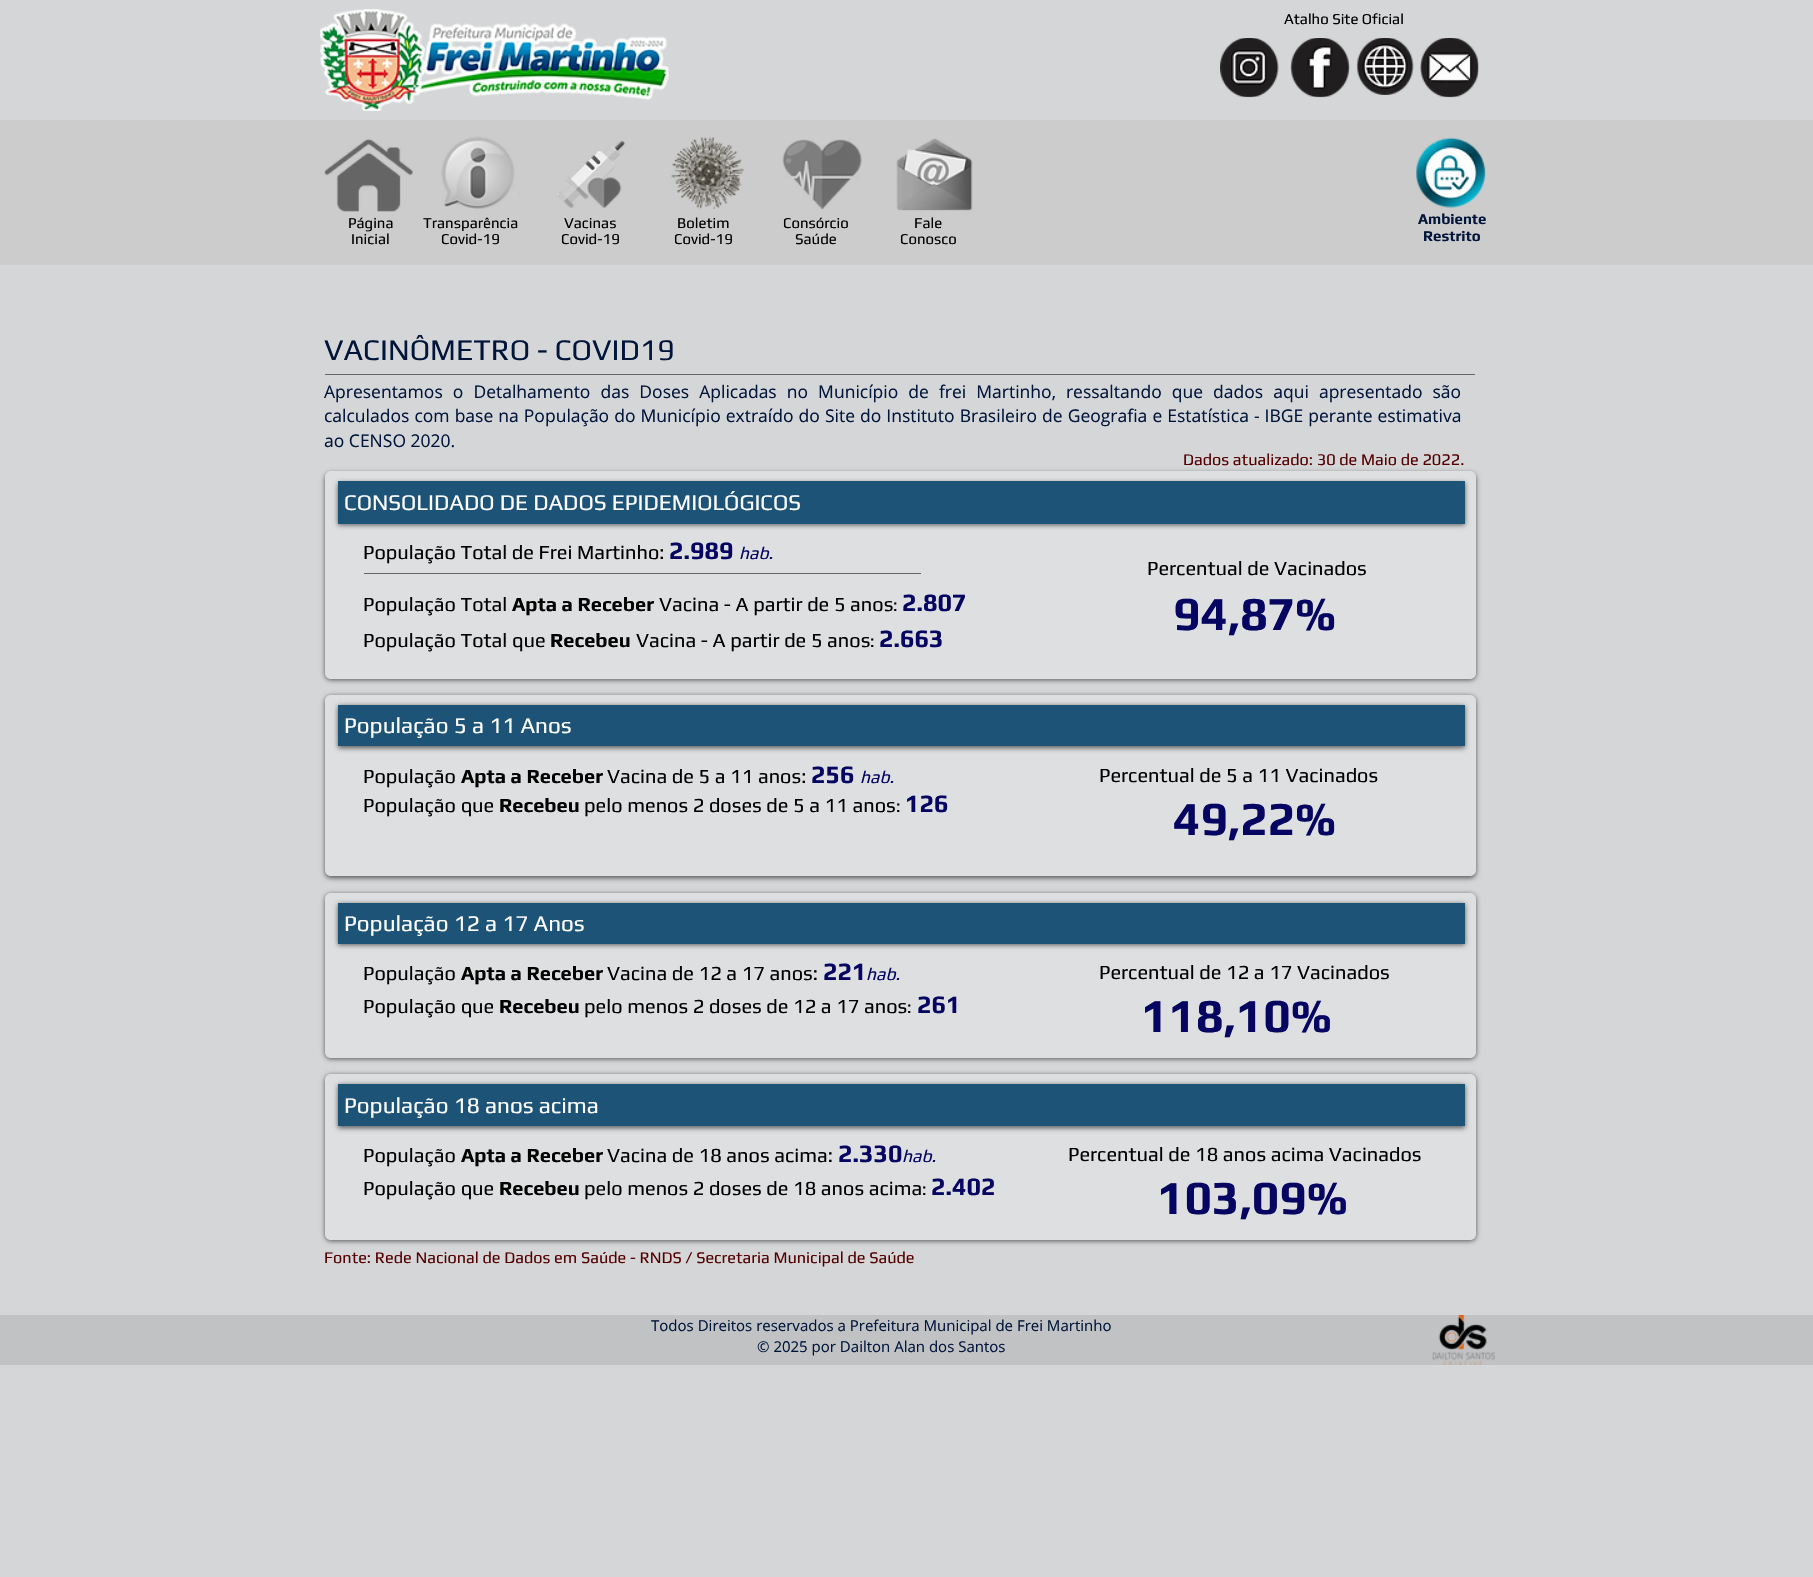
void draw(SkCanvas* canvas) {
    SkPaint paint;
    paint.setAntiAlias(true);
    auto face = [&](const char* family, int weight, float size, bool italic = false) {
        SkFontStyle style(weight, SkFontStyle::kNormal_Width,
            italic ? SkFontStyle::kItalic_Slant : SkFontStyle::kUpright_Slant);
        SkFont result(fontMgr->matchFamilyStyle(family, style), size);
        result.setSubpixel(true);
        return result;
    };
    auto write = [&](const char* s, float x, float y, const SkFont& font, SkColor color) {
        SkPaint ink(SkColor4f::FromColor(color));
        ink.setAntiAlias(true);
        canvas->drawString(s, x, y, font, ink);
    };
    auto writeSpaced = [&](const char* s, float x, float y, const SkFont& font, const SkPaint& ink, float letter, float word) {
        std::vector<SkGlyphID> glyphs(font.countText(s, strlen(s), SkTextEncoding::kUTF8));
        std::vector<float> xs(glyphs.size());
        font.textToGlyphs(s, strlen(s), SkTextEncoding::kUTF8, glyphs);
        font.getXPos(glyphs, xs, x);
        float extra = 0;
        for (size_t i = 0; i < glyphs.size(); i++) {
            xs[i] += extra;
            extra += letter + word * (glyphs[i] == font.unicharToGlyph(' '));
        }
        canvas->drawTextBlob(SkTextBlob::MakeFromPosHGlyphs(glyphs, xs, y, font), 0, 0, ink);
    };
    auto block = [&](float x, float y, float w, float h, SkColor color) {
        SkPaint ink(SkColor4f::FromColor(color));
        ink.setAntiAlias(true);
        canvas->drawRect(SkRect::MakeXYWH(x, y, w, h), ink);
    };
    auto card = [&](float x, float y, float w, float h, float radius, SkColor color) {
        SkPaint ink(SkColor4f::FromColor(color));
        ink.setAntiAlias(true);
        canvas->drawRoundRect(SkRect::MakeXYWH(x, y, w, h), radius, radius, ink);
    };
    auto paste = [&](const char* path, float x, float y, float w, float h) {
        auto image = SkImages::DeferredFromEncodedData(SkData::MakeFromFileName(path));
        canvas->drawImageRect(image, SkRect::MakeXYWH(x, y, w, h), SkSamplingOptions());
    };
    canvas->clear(SkColorSetRGB(212, 214, 215));
    paste("pic1.png", 320, 9, 349, 102);
    auto kFont1 = face("Play", 400, 15);
    write("Atalho Site Oficial", 1284, 24, kFont1, SK_ColorBLACK);
    paste("pic2.png", 1220, 38, 59, 60);
    paste("pic3.png", 1290, 38, 60, 60);
    paste("pic4.png", 1356, 38, 58, 57);
    paste("pic5.png", 1420, 38, 59, 60);
    block(0, 120, 1813, 145, SkColorSetRGB(204, 204, 204));
    paste("pic6.png", 324, 138, 89, 74);
    paste("pic7.png", 441, 136, 79, 73);
    paste("pic8.png", 557, 140, 69, 69);
    paste("pic9.png", 671, 137, 73, 72);
    paste("pic10.png", 782, 139, 80, 71);
    paste("pic11.png", 896, 138, 77, 73);
    paste("pic12.png", 1416, 137, 70, 71);
    write("Página", 348, 228, kFont1, SK_ColorBLACK);
    write("Inicial", 351, 244, kFont1, SK_ColorBLACK);
    write("Transparência", 423, 228, kFont1, SK_ColorBLACK);
    write("Covid-19", 441, 244, kFont1, SK_ColorBLACK);
    write("Vacinas", 564, 228, kFont1, SK_ColorBLACK);
    write("Covid-19", 561, 244, kFont1, SK_ColorBLACK);
    write("Boletim", 677, 228, kFont1, SK_ColorBLACK);
    write("Covid-19", 674, 244, kFont1, SK_ColorBLACK);
    write("Consórcio", 783, 228, kFont1, SK_ColorBLACK);
    write("Saúde", 795, 244, kFont1, SK_ColorBLACK);
    write("Fale", 914, 228, kFont1, SK_ColorBLACK);
    write("Conosco", 900, 244, kFont1, SK_ColorBLACK);
    auto kFont2 = face("Play", 700, 15);
    write("Ambiente", 1418, 224, kFont2, SkColorSetRGB(1, 21, 59));
    write("Restrito", 1423, 241, kFont2, SkColorSetRGB(1, 21, 59));
    auto kFont3 = face("Play", 400, 30);
    write("VACINÔMETRO - COVID19", 324, 360, kFont3, SkColorSetRGB(1, 21, 59));
    block(325, 374, 1150, 1, SkColorSetRGB(99, 103, 105));
    auto kFont4 = face("Open Sans", 400, 17.5f);
    paint.setColor(SkColorSetRGB(1, 21, 59));
    writeSpaced("Apresentamos o Detalhamento das Doses Aplicadas no Município de frei Martinho, ressaltando que dados aqui apresentado são", 324, 398, kFont4, paint, 0, 5.5f);
    writeSpaced("calculados com base na População do Município extraído do Site do Instituto Brasileiro de Geografia e Estatística - IBGE perante estimativa", 324, 422, kFont4, paint, 0, 0.5f);
    write("ao CENSO 2020.", 324, 447, kFont4, SkColorSetRGB(1, 21, 59));
    canvas->save();
    canvas->clipPath(SkPathBuilder(SkPathFillType::kEvenOdd).moveTo(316, 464).lineTo(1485, 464).lineTo(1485, 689).lineTo(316, 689).close().moveTo(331, 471).lineTo(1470, 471).cubicTo(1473.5f, 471, 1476, 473.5f, 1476, 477).lineTo(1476, 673).cubicTo(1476, 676.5f, 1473.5f, 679, 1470, 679).lineTo(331, 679).cubicTo(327.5f, 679, 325, 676.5f, 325, 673).lineTo(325, 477).cubicTo(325, 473.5f, 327.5f, 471, 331, 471).close().detach(), true);
    paint.setColor(SkColorSetARGB(153, 0, 0, 0));
    paint.setMaskFilter(SkMaskFilter::MakeBlur(kNormal_SkBlurStyle, 2.5f));
    canvas->drawRoundRect(SkRect::MakeXYWH(325, 473, 1151, 207), 6, 6, paint);
    paint.setMaskFilter(nullptr);
    canvas->restore();
    auto kFont5 = face("Play", 400, 16.25f);
    write("Dados atualizado: 30 de Maio de 2022.", 1183, 465, kFont5, SkColorSetRGB(84, 0, 0));
    card(325, 471, 1151, 208, 6, SkColorSetARGB(56, 255, 255, 255));
    paint.setMaskFilter(SkMaskFilter::MakeBlur(kNormal_SkBlurStyle, 2.5f));
    canvas->drawRect(SkRect::MakeXYWH(338, 483, 1127, 42), paint);
    paint.setMaskFilter(nullptr);
    block(338, 481, 1127, 43, SkColorSetRGB(29, 83, 119));
    auto kFont6 = face("Play", 400, 22.5f);
    write("CONSOLIDADO DE DADOS EPIDEMIOLÓGICOS", 344, 510, kFont6, SK_ColorWHITE);
    auto kFont7 = face("Play", 400, 20);
    write("População Total de Frei Martinho:", 363, 559, kFont7, SK_ColorBLACK);
    auto kFont8 = face("Play", 700, 25);
    write("2.989", 669, 559, kFont8, SkColorSetRGB(6, 5, 97));
    auto kFont9 = face("Play", 400, 17.5f, true);
    write("hab.", 739, 559, kFont9, SkColorSetRGB(6, 5, 97));
    block(364, 573, 557, 1, SkColorSetRGB(99, 103, 105));
    write("Percentual de Vacinados", 1147, 575, kFont7, SK_ColorBLACK);
    write("População Total", 363, 611, kFont7, SK_ColorBLACK);
    auto kFont10 = face("Play", 700, 20);
    write("Apta a Receber", 512, 611, kFont10, SK_ColorBLACK);
    write("Vacina - A partir de 5 anos", 659, 611, kFont7, SK_ColorBLACK);
    auto kFont11 = face("Play", 400, 17.5f);
    write(":", 893, 611, kFont11, SK_ColorBLACK);
    write("2.807", 902, 611, kFont8, SkColorSetRGB(6, 5, 97));
    auto kFont12 = face("Play", 700, 47.5f);
    write("94,87%", 1173, 630, kFont12, SkColorSetRGB(6, 5, 97));
    write("População Total que", 363, 647, kFont7, SK_ColorBLACK);
    write("Recebeu", 550, 647, kFont10, SK_ColorBLACK);
    write("Vacina - A partir de 5 anos", 636, 647, kFont7, SK_ColorBLACK);
    write(":", 870, 647, kFont11, SK_ColorBLACK);
    write("2.663", 879, 647, kFont8, SkColorSetRGB(6, 5, 97));
    canvas->save();
    canvas->clipPath(SkPathBuilder(SkPathFillType::kEvenOdd).moveTo(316, 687).lineTo(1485, 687).lineTo(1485, 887).lineTo(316, 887).close().moveTo(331, 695).lineTo(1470, 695).cubicTo(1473.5f, 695, 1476, 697.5f, 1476, 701).lineTo(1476, 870).cubicTo(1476, 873.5f, 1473.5f, 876, 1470, 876).lineTo(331, 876).cubicTo(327.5f, 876, 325, 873.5f, 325, 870).lineTo(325, 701).cubicTo(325, 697.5f, 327.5f, 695, 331, 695).close().detach(), true);
    paint.setMaskFilter(SkMaskFilter::MakeBlur(kNormal_SkBlurStyle, 2.5f));
    canvas->drawRoundRect(SkRect::MakeXYWH(325, 696, 1151, 182), 6, 6, paint);
    paint.setMaskFilter(nullptr);
    canvas->restore();
    card(325, 695, 1151, 181, 6, SkColorSetARGB(56, 255, 255, 255));
    paint.setMaskFilter(SkMaskFilter::MakeBlur(kNormal_SkBlurStyle, 2.5f));
    canvas->drawRect(SkRect::MakeXYWH(338, 706, 1127, 42), paint);
    paint.setMaskFilter(nullptr);
    block(338, 705, 1127, 41, SkColorSetRGB(29, 83, 119));
    write("População 5 a 11 Anos", 344, 733, kFont6, SK_ColorWHITE);
    write("População", 363, 783, kFont7, SK_ColorBLACK);
    write("Apta a Receber", 461, 783, kFont10, SK_ColorBLACK);
    write("Vacina de 5 a 11 anos:", 607, 783, kFont7, SK_ColorBLACK);
    write("256", 811, 783, kFont8, SkColorSetRGB(6, 5, 97));
    write("hab.", 860, 783, kFont9, SkColorSetRGB(6, 5, 97));
    write("Percentual de 5 a 11 Vacinados", 1099, 782, kFont7, SK_ColorBLACK);
    write("População que", 363, 812, kFont7, SK_ColorBLACK);
    write("Recebeu", 499, 812, kFont10, SK_ColorBLACK);
    write("pelo menos 2 doses de 5 a 11 anos", 584, 812, kFont7, SK_ColorBLACK);
    write(":", 896, 812, kFont11, SK_ColorBLACK);
    write("126", 905, 812, kFont8, SkColorSetRGB(6, 5, 97));
    write("49,22%", 1173, 835, kFont12, SkColorSetRGB(6, 5, 97));
    canvas->save();
    canvas->clipPath(SkPathBuilder(SkPathFillType::kEvenOdd).moveTo(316, 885).lineTo(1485, 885).lineTo(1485, 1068).lineTo(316, 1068).close().moveTo(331, 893).lineTo(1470, 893).cubicTo(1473.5f, 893, 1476, 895.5f, 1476, 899).lineTo(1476, 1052).cubicTo(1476, 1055.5f, 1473.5f, 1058, 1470, 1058).lineTo(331, 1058).cubicTo(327.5f, 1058, 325, 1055.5f, 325, 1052).lineTo(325, 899).cubicTo(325, 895.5f, 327.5f, 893, 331, 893).close().detach(), true);
    paint.setMaskFilter(SkMaskFilter::MakeBlur(kNormal_SkBlurStyle, 2.5f));
    canvas->drawRoundRect(SkRect::MakeXYWH(325, 894, 1151, 165), 6, 6, paint);
    paint.setMaskFilter(nullptr);
    canvas->restore();
    card(325, 893, 1151, 165, 6, SkColorSetARGB(56, 255, 255, 255));
    paint.setMaskFilter(SkMaskFilter::MakeBlur(kNormal_SkBlurStyle, 2.5f));
    canvas->drawRect(SkRect::MakeXYWH(338, 904, 1127, 41), paint);
    paint.setMaskFilter(nullptr);
    block(338, 903, 1127, 41, SkColorSetRGB(29, 83, 119));
    write("População 12 a 17 Anos", 344, 931, kFont6, SK_ColorWHITE);
    write("População", 363, 980, kFont7, SK_ColorBLACK);
    write("Apta a Receber", 461, 980, kFont10, SK_ColorBLACK);
    write("Vacina de 12 a 17 anos:", 607, 980, kFont7, SK_ColorBLACK);
    write("221", 823, 980, kFont8, SkColorSetRGB(6, 5, 97));
    write("hab.", 866, 980, kFont9, SkColorSetRGB(6, 5, 97));
    write("Percentual de 12 a 17 Vacinados", 1099, 979, kFont7, SK_ColorBLACK);
    write("População que", 363, 1013, kFont7, SK_ColorBLACK);
    write("Recebeu", 499, 1013, kFont10, SK_ColorBLACK);
    write("pelo menos 2 doses de 12 a 17 anos", 584, 1013, kFont7, SK_ColorBLACK);
    write(":", 907, 1013, kFont11, SK_ColorBLACK);
    write("261", 917, 1013, kFont8, SkColorSetRGB(6, 5, 97));
    write("118,10%", 1141, 1032, kFont12, SkColorSetRGB(6, 5, 97));
    canvas->save();
    canvas->clipPath(SkPathBuilder(SkPathFillType::kEvenOdd).moveTo(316, 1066).lineTo(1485, 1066).lineTo(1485, 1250).lineTo(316, 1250).close().moveTo(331, 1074).lineTo(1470, 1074).cubicTo(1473.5f, 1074, 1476, 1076.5f, 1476, 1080).lineTo(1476, 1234).cubicTo(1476, 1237.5f, 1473.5f, 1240, 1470, 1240).lineTo(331, 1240).cubicTo(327.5f, 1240, 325, 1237.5f, 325, 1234).lineTo(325, 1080).cubicTo(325, 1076.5f, 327.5f, 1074, 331, 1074).close().detach(), true);
    paint.setMaskFilter(SkMaskFilter::MakeBlur(kNormal_SkBlurStyle, 2.5f));
    canvas->drawRoundRect(SkRect::MakeXYWH(325, 1075, 1151, 166), 6, 6, paint);
    paint.setMaskFilter(nullptr);
    canvas->restore();
    card(325, 1074, 1151, 166, 6, SkColorSetARGB(56, 255, 255, 255));
    paint.setMaskFilter(SkMaskFilter::MakeBlur(kNormal_SkBlurStyle, 2.5f));
    canvas->drawRect(SkRect::MakeXYWH(338, 1085, 1127, 43), paint);
    paint.setMaskFilter(nullptr);
    block(338, 1084, 1127, 42, SkColorSetRGB(29, 83, 119));
    write("População 18 anos acima", 344, 1113, kFont6, SK_ColorWHITE);
    write("População", 363, 1162, kFont7, SK_ColorBLACK);
    write("Apta a Receber", 461, 1162, kFont10, SK_ColorBLACK);
    write("Vacina de 18 anos acima:", 607, 1162, kFont7, SK_ColorBLACK);
    write("2.330", 838, 1162, kFont8, SkColorSetRGB(6, 5, 97));
    write("hab.", 902, 1162, kFont9, SkColorSetRGB(6, 5, 97));
    write("Percentual de 18 anos acima Vacinados", 1068, 1161, kFont7, SK_ColorBLACK);
    write("População que", 363, 1195, kFont7, SK_ColorBLACK);
    write("Recebeu", 499, 1195, kFont10, SK_ColorBLACK);
    write("pelo menos 2 doses de 18 anos acima", 584, 1195, kFont7, SK_ColorBLACK);
    write(":", 922, 1195, kFont11, SK_ColorBLACK);
    write("2.402", 931, 1195, kFont8, SkColorSetRGB(6, 5, 97));
    write("103,09%", 1157, 1214, kFont12, SkColorSetRGB(6, 5, 97));
    write("Fonte: Rede Nacional de Dados em Saúde - RNDS / Secretaria Municipal de Saúde", 324, 1263, kFont5, SkColorSetRGB(84, 0, 0));
    block(0, 1315, 1813, 50, SkColorSetRGB(192, 194, 195));
    auto kFont13 = face("Open Sans", 400, 15);
    write("Todos Direitos reservados a Prefeitura Municipal de Frei Martinho", 651, 1331, kFont13, SkColorSetRGB(1, 21, 59));
    write("© 2025 por Dailton Alan dos Santos", 757, 1352, kFont13, SkColorSetRGB(1, 21, 59));
    paste("pic13.png", 1432, 1315, 63, 50);
}
